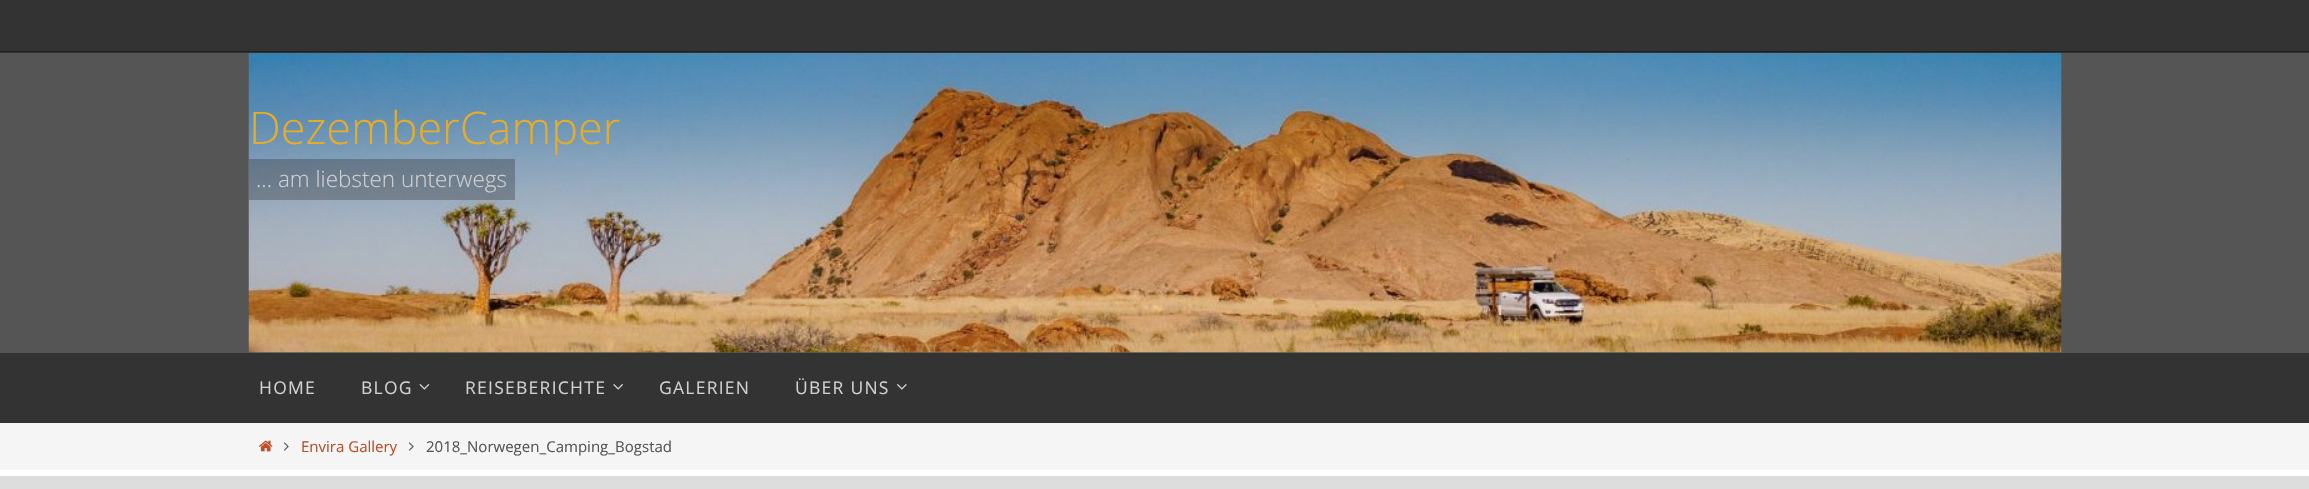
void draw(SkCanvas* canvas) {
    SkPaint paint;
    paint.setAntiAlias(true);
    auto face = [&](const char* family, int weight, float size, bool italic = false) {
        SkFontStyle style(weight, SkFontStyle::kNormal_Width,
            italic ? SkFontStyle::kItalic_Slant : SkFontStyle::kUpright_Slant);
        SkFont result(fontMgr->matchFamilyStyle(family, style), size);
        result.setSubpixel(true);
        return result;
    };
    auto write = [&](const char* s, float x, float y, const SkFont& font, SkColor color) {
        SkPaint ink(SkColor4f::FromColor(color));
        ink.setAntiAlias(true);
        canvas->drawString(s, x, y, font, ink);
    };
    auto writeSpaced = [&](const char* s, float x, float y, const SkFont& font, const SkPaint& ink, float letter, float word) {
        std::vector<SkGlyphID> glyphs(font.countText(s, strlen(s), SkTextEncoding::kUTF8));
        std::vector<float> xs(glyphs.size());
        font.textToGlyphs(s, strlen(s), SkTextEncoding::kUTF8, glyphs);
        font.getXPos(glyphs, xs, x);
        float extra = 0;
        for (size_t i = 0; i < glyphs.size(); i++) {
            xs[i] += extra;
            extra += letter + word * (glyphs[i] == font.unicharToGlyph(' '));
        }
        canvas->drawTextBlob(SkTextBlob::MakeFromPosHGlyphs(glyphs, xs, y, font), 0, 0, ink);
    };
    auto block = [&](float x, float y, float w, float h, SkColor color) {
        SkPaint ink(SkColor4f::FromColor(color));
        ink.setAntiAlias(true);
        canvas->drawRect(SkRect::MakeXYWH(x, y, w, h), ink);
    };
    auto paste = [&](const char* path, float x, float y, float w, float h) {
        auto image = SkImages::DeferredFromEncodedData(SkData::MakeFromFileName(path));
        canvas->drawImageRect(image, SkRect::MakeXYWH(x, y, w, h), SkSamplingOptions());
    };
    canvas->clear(SK_ColorWHITE);
    block(0, 0, 2309, 53, SkColorSetRGB(51, 51, 51));
    block(0, 51, 2309, 1, SkColorSetRGB(31, 31, 31));
    block(0, 53, 2309, 300, SkColorSetRGB(85, 85, 85));
    paste("pic1.png", 248, 53, 1814, 300);
    auto kFont1 = face("Open Sans", 300, 45);
    write("DezemberCamper", 249, 144, kFont1, SkColorSetRGB(230, 172, 39));
    block(249, 159, 266, 41, SkColorSetARGB(77, 34, 34, 34));
    auto kFont2 = face("Open Sans", 300, 22.5f);
    write("... am liebsten unterwegs", 256, 187, kFont2, SkColorSetRGB(208, 208, 208));
    block(0, 353, 2309, 70, SkColorSetRGB(51, 51, 51));
    auto kFont3 = face("Open Sans", 400, 17.5f);
    paint.setColor(SkColorSetRGB(208, 208, 208));
    writeSpaced("HOME", 259, 394, kFont3, paint, 1.25f, 0);
    writeSpaced("BLOG", 361, 394, kFont3, paint, 1.25f, 0);
    paste("pic2.png", 419, 384, 11, 6);
    writeSpaced("REISEBERICHTE", 465, 394, kFont3, paint, 1.25f, 0);
    paste("pic3.png", 613, 384, 10, 6);
    writeSpaced("GALERIEN", 659, 394, kFont3, paint, 1.25f, 0);
    writeSpaced("ÜBER UNS", 795, 394, kFont3, paint, 1.25f, 0);
    paste("pic4.png", 897, 384, 10, 6);
    block(0, 423, 2309, 47, SkColorSetRGB(245, 245, 245));
    paste("pic5.png", 259, 440, 14, 12);
    paste("pic6.png", 283, 442, 6, 9);
    auto kFont4 = face("Open Sans", 400, 15);
    write("Envira Gallery", 301, 452, kFont4, SkColorSetRGB(191, 77, 40));
    paste("pic6.png", 408, 442, 6, 9);
    write("2018_Norwegen_Camping_Bogstad", 426, 452, kFont4, SkColorSetRGB(85, 85, 85));
    block(0, 476, 2309, 13, SkColorSetRGB(221, 221, 221));
}
